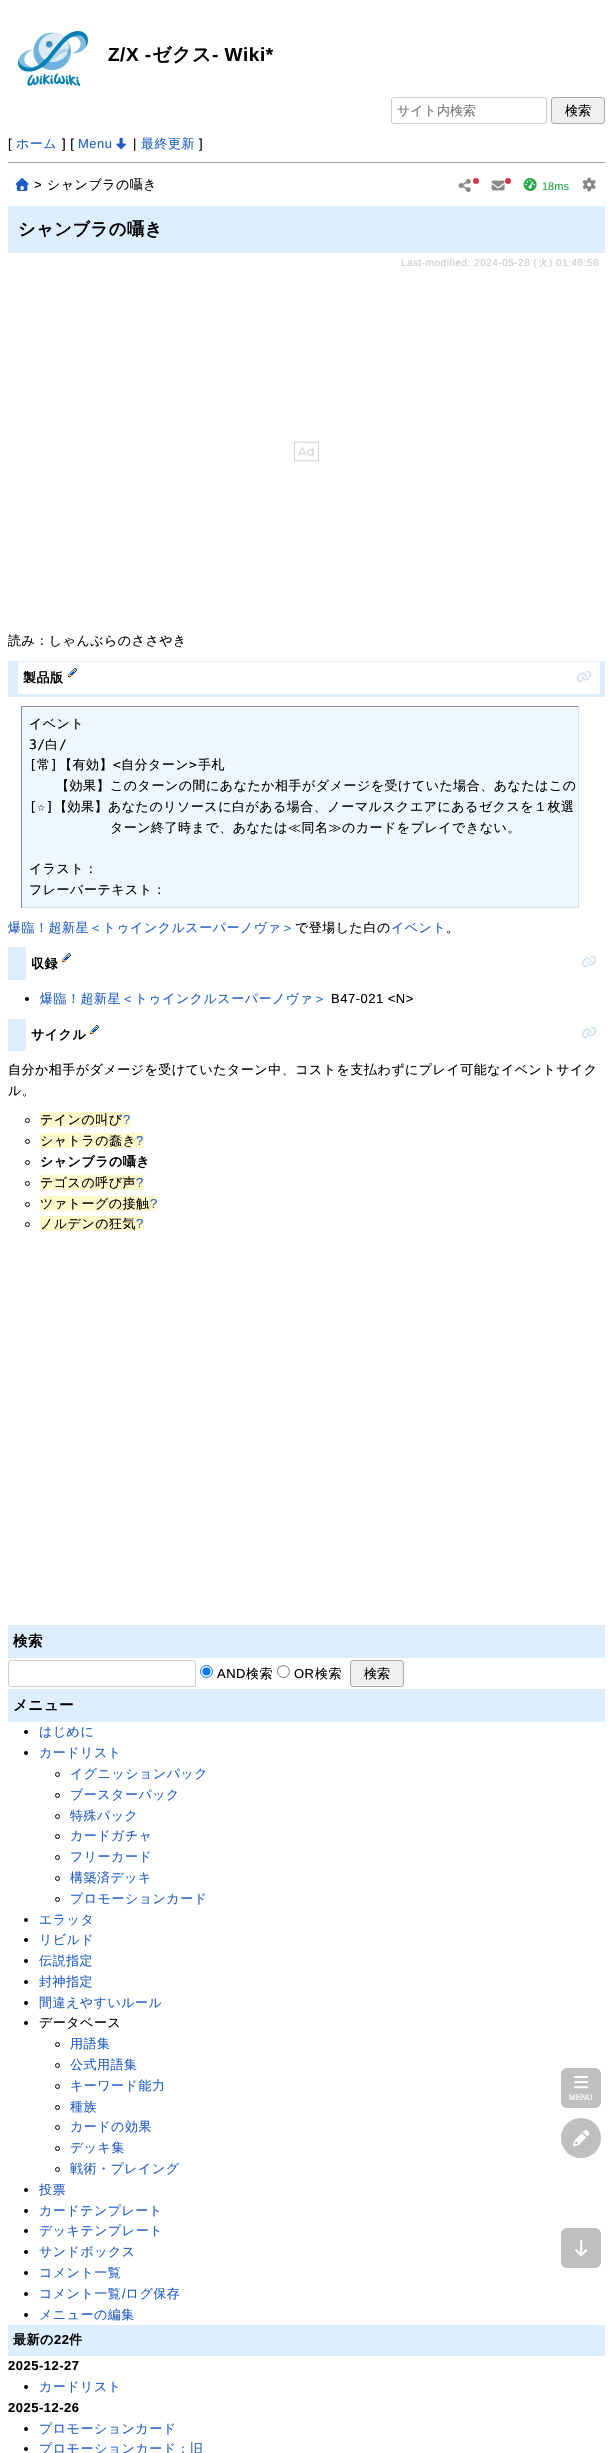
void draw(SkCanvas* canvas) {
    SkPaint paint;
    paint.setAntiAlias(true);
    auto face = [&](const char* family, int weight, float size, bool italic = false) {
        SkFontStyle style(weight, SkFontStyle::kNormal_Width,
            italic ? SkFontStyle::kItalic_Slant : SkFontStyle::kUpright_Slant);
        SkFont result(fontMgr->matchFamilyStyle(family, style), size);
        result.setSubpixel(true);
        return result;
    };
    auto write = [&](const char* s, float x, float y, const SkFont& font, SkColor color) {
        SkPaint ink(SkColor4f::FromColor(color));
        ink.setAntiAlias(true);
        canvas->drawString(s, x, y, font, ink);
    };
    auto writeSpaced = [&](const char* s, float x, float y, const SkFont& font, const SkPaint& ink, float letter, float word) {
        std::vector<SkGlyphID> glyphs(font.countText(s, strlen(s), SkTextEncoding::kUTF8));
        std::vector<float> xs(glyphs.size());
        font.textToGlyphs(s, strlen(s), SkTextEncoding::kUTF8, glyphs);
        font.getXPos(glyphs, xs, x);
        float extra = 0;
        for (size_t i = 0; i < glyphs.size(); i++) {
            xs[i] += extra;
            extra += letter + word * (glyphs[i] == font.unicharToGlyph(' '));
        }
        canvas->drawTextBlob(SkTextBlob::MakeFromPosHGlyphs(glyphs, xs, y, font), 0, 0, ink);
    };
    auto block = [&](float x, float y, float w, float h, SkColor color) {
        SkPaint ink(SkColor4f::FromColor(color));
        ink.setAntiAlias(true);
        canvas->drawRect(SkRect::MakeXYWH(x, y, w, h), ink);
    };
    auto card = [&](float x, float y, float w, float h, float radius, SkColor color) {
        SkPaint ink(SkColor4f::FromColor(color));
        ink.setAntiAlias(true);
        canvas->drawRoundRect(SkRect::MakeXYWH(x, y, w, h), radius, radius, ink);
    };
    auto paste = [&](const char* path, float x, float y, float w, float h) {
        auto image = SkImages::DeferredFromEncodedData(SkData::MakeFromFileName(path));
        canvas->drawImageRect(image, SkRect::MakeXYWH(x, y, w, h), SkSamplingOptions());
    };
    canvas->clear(SK_ColorWHITE);
    paste("pic1.png", 18, 31, 70, 55);
    auto kFont1 = face("Liberation Sans", 700, 19);
    paint.setColor(SK_ColorBLACK);
    writeSpaced("Z/X -", 108, 61, kFont1, paint, 0.5f, 0);
    auto kFont2 = face("WenQuanYi Zen Hei", 700, 19);
    writeSpaced("ゼクス", 152, 61, kFont2, paint, 0.5f, 0);
    writeSpaced("- Wiki*", 212, 61, kFont1, paint, 0.5f, 0);
    paint.setStyle(SkPaint::kStroke_Style);
    paint.setStrokeWidth(1);
    paint.setColor(SkColorSetRGB(204, 204, 204));
    canvas->drawRoundRect(SkRect::MakeXYWH(391.5f, 97.5f, 155, 26), 2.5f, 2.5f, paint);
    auto kFont3 = face("WenQuanYi Zen Hei", 500, 13);
    write("サイト内検索", 397, 115, kFont3, SkColorSetRGB(117, 117, 117));
    paint.setStyle(SkPaint::kFill_Style);
    paint.setColor(SkColorSetRGB(239, 239, 239));
    canvas->drawRoundRect(SkRect::MakeXYWH(551.5f, 97.5f, 53, 26), 2.5f, 2.5f, paint);
    paint.setStyle(SkPaint::kStroke_Style);
    paint.setColor(SkColorSetRGB(170, 170, 170));
    canvas->drawRoundRect(SkRect::MakeXYWH(551.5f, 97.5f, 53, 26), 2.5f, 2.5f, paint);
    write("検索", 565, 115, kFont3, SK_ColorBLACK);
    auto kFont4 = face("Liberation Sans", 400, 13);
    paint.setStyle(SkPaint::kFill_Style);
    paint.setColor(SK_ColorBLACK);
    writeSpaced("[", 8, 148, kFont4, paint, 0.5f, 0);
    paint.setColor(SkColorSetRGB(33, 93, 198));
    writeSpaced("ホーム", 16, 148, kFont3, paint, 0.5f, 0);
    paint.setColor(SK_ColorBLACK);
    writeSpaced("] [", 62, 148, kFont4, paint, 0.5f, 0);
    paint.setColor(SkColorSetRGB(33, 93, 198));
    writeSpaced("Menu", 78, 148, kFont4, paint, 0.5f, 0);
    paste("pic2.png", 116, 137, 10, 13);
    paint.setColor(SK_ColorBLACK);
    writeSpaced("|", 133, 148, kFont4, paint, 0.5f, 0);
    paint.setColor(SkColorSetRGB(33, 93, 198));
    writeSpaced("最終更新", 141, 148, kFont3, paint, 0.5f, 0);
    paint.setColor(SK_ColorBLACK);
    writeSpaced("]", 199, 148, kFont4, paint, 0.5f, 0);
    block(8, 162, 597, 1, SkColorSetRGB(159, 159, 159));
    card(561, 2068, 40, 40, 6, SkColorSetRGB(191, 191, 191));
    paste("pic3.png", 574, 2076, 15, 13);
    auto kFont5 = face("Liberation Sans", 400, 8);
    write("MENU", 569, 2100, kFont5, SK_ColorWHITE);
    paint.setColor(SkColorSetRGB(191, 191, 191));
    canvas->drawCircle(581, 2138, 20, paint);
    paste("pic4.png", 573, 2130, 17, 17);
    card(561, 2228, 40, 40, 6, SkColorSetRGB(191, 191, 191));
    paste("pic5.png", 575, 2240, 13, 17);
    paste("pic6.png", 15, 178, 14, 13);
    paint.setColor(SK_ColorBLACK);
    writeSpaced(">", 34, 189, kFont4, paint, 0.5f, 0);
    writeSpaced("シャンブラの囁き", 47, 189, kFont3, paint, 0.5f, 0);
    paste("pic7.png", 458, 179, 13, 13);
    paint.setColor(SkColorSetRGB(220, 53, 69));
    canvas->drawCircle(476, 181, 3, paint);
    paste("pic8.png", 491, 180, 14, 11);
    canvas->drawCircle(508, 181, 3, paint);
    paste("pic9.png", 523, 178, 14, 13);
    auto kFont6 = face("Liberation Sans", 400, 11);
    write("18ms", 542, 190, kFont6, SkColorSetRGB(40, 167, 69));
    paste("pic10.png", 582, 177, 14, 15);
    block(8, 206, 597, 47, SkColorSetRGB(221, 238, 255));
    auto kFont7 = face("WenQuanYi Zen Hei", 700, 17.25f);
    paint.setColor(SK_ColorBLACK);
    writeSpaced("シャンブラの囁き", 18, 235, kFont7, paint, 0.5f, 0);
    auto kFont8 = face("Liberation Sans", 400, 10);
    paint.setColor(SkColorSetRGB(204, 204, 204));
    writeSpaced("Last-modified: 2024-05-28 (", 401, 266, kFont8, paint, 0.5f, 0);
    auto kFont9 = face("WenQuanYi Zen Hei", 500, 10);
    writeSpaced("火", 538, 266, kFont9, paint, 0.5f, 0);
    writeSpaced(") 01:46:58", 549, 266, kFont8, paint, 0.5f, 0);
    paste("pic11.png", 294, 441, 25, 21);
    paint.setColor(SK_ColorBLACK);
    writeSpaced("読み：しゃんぶらのささやき", 8, 645, kFont3, paint, 0.5f, 0);
    block(18, 661, 587, 1, SkColorSetRGB(221, 238, 255));
    block(600, 661, 5, 36, SkColorSetRGB(221, 238, 255));
    block(18, 694, 587, 3, SkColorSetRGB(221, 238, 255));
    block(8, 661, 10, 36, SkColorSetRGB(221, 238, 255));
    auto kFont10 = face("WenQuanYi Zen Hei", 700, 13);
    writeSpaced("製品版", 23, 682, kFont10, paint, 0.5f, 0);
    paste("pic12.png", 68, 668, 9, 9);
    paste("pic13.png", 576, 670, 16, 13);
    block(22, 707, 556, 200, SkColorSetRGB(240, 248, 255));
    block(21, 706, 558, 1, SkColorSetRGB(136, 136, 153));
    block(578, 706, 1, 202, SkColorSetRGB(221, 221, 238));
    block(21, 907, 558, 1, SkColorSetRGB(221, 221, 238));
    block(21, 706, 1, 202, SkColorSetRGB(136, 136, 153));
    writeSpaced("イベント", 29, 728, kFont3, paint, 0.5f, 0);
    auto kFont11 = face("DejaVu Sans Mono", 400, 13);
    writeSpaced("3/", 29, 749, kFont11, paint, 0.5f, 0);
    writeSpaced("白", 45, 749, kFont3, paint, 0.5f, 0);
    writeSpaced("/", 59, 749, kFont11, paint, 0.5f, 0);
    writeSpaced("[", 29, 769, kFont11, paint, 0.5f, 0);
    writeSpaced("常", 37, 769, kFont3, paint, 0.5f, 0);
    writeSpaced("]", 50, 769, kFont11, paint, 0.5f, 0);
    writeSpaced("【有効】", 59, 769, kFont3, paint, 0.5f, 0);
    writeSpaced("<", 113, 769, kFont11, paint, 0.5f, 0);
    writeSpaced("自分ターン", 121, 769, kFont3, paint, 0.5f, 0);
    writeSpaced(">", 189, 769, kFont11, paint, 0.5f, 0);
    writeSpaced("手札", 198, 769, kFont3, paint, 0.5f, 0);
    writeSpaced("【効果】このターンの間にあなたか相手がダメージを受けていた場合、あなたはこの", 56, 790, kFont3, paint, 0.5f, 0);
    writeSpaced("[☆]", 29, 811, kFont11, paint, 0.5f, 0);
    writeSpaced("【効果】あなたのリソースに白がある場合、ノーマルスクエアにあるゼクスを１枚選", 54, 811, kFont3, paint, 0.5f, 0);
    writeSpaced("ターン終了時まで、あなたは≪同名≫のカードをプレイできない。", 110, 832, kFont3, paint, 0.5f, 0);
    writeSpaced("イラスト：", 29, 873, kFont3, paint, 0.5f, 0);
    writeSpaced("フレーバーテキスト：", 29, 894, kFont3, paint, 0.5f, 0);
    paint.setColor(SkColorSetRGB(33, 93, 198));
    writeSpaced("爆臨！超新星＜トゥインクルスーパーノヴァ＞", 8, 932, kFont3, paint, 0.5f, 0);
    paint.setColor(SK_ColorBLACK);
    writeSpaced("で登場した白の", 295, 932, kFont3, paint, 0.5f, 0);
    paint.setColor(SkColorSetRGB(33, 93, 198));
    writeSpaced("イベント", 391, 932, kFont3, paint, 0.5f, 0);
    paint.setColor(SK_ColorBLACK);
    writeSpaced("。", 446, 932, kFont3, paint, 0.5f, 0);
    block(8, 947, 18, 33, SkColorSetRGB(221, 238, 255));
    writeSpaced("収録", 31, 968, kFont10, paint, 0.5f, 0);
    paste("pic12.png", 62, 953, 9, 9);
    paste("pic13.png", 581, 955, 16, 13);
    canvas->drawCircle(27, 999, 2, paint);
    paint.setColor(SkColorSetRGB(33, 93, 198));
    writeSpaced("爆臨！超新星＜トゥインクルスーパーノヴァ＞", 40, 1003, kFont3, paint, 0.5f, 0);
    paint.setColor(SK_ColorBLACK);
    writeSpaced("B47-021 <N>", 331, 1003, kFont4, paint, 0.5f, 0);
    block(8, 1019, 18, 32, SkColorSetRGB(221, 238, 255));
    writeSpaced("サイクル", 31, 1039, kFont10, paint, 0.5f, 0);
    paste("pic12.png", 90, 1025, 9, 9);
    paste("pic13.png", 581, 1026, 16, 13);
    writeSpaced("自分か相手がダメージを受けていたターン中、コストを支払わずにプレイ可能なイベントサイク", 8, 1074, kFont3, paint, 0.5f, 0);
    writeSpaced("ル。", 8, 1095, kFont3, paint, 0.5f, 0);
    paint.setStyle(SkPaint::kStroke_Style);
    canvas->drawCircle(27.5f, 1120.5f, 2, paint);
    block(40, 1112, 90, 15, SkColorSetRGB(255, 250, 204));
    paint.setStyle(SkPaint::kFill_Style);
    writeSpaced("テインの叫び", 40, 1124, kFont3, paint, 0.5f, 0);
    paint.setColor(SkColorSetRGB(33, 93, 198));
    writeSpaced("?", 123, 1124, kFont4, paint, 0.5f, 0);
    paint.setStyle(SkPaint::kStroke_Style);
    paint.setColor(SK_ColorBLACK);
    canvas->drawCircle(27.5f, 1141.5f, 2, paint);
    block(40, 1133, 104, 15, SkColorSetRGB(255, 250, 204));
    paint.setStyle(SkPaint::kFill_Style);
    writeSpaced("シャトラの蠢き", 40, 1145, kFont3, paint, 0.5f, 0);
    paint.setColor(SkColorSetRGB(33, 93, 198));
    writeSpaced("?", 136, 1145, kFont4, paint, 0.5f, 0);
    paint.setStyle(SkPaint::kStroke_Style);
    paint.setColor(SK_ColorBLACK);
    canvas->drawCircle(27.5f, 1162.5f, 2, paint);
    paint.setStyle(SkPaint::kFill_Style);
    writeSpaced("シャンブラの囁き", 40, 1166, kFont10, paint, 0.5f, 0);
    paint.setStyle(SkPaint::kStroke_Style);
    canvas->drawCircle(27.5f, 1183.5f, 2, paint);
    block(40, 1175, 104, 15, SkColorSetRGB(255, 250, 204));
    paint.setStyle(SkPaint::kFill_Style);
    writeSpaced("テゴスの呼び声", 40, 1187, kFont3, paint, 0.5f, 0);
    paint.setColor(SkColorSetRGB(33, 93, 198));
    writeSpaced("?", 136, 1187, kFont4, paint, 0.5f, 0);
    paint.setStyle(SkPaint::kStroke_Style);
    paint.setColor(SK_ColorBLACK);
    canvas->drawCircle(27.5f, 1204.5f, 2, paint);
    block(40, 1196, 117, 15, SkColorSetRGB(255, 250, 204));
    paint.setStyle(SkPaint::kFill_Style);
    writeSpaced("ツァトーグの接触", 40, 1208, kFont3, paint, 0.5f, 0);
    paint.setColor(SkColorSetRGB(33, 93, 198));
    writeSpaced("?", 150, 1208, kFont4, paint, 0.5f, 0);
    paint.setStyle(SkPaint::kStroke_Style);
    paint.setColor(SK_ColorBLACK);
    canvas->drawCircle(27.5f, 1224.5f, 2, paint);
    block(40, 1216, 104, 15, SkColorSetRGB(255, 250, 204));
    paint.setStyle(SkPaint::kFill_Style);
    writeSpaced("ノルデンの狂気", 40, 1228, kFont3, paint, 0.5f, 0);
    paint.setColor(SkColorSetRGB(33, 93, 198));
    writeSpaced("?", 136, 1228, kFont4, paint, 0.5f, 0);
    block(8, 1625, 597, 33, SkColorSetRGB(221, 238, 255));
    auto kFont12 = face("WenQuanYi Zen Hei", 700, 14.5f);
    paint.setColor(SK_ColorBLACK);
    writeSpaced("検索", 13, 1646, kFont12, paint, 0.5f, 0);
    paint.setStyle(SkPaint::kStroke_Style);
    paint.setColor(SkColorSetRGB(204, 204, 204));
    canvas->drawRoundRect(SkRect::MakeXYWH(8.5f, 1660.5f, 187, 26), 2.5f, 2.5f, paint);
    paint.setColor(SkColorSetRGB(0, 117, 255));
    canvas->drawCircle(206.5f, 1671.5f, 6, paint);
    paint.setStyle(SkPaint::kFill_Style);
    canvas->drawCircle(206.5f, 1671.5f, 4, paint);
    paint.setColor(SK_ColorBLACK);
    writeSpaced("AND", 217, 1678, kFont4, paint, 0.5f, 0);
    writeSpaced("検索", 246, 1678, kFont3, paint, 0.5f, 0);
    paint.setStyle(SkPaint::kStroke_Style);
    paint.setColor(SkColorSetRGB(118, 118, 118));
    canvas->drawCircle(283.5f, 1671.5f, 6, paint);
    paint.setStyle(SkPaint::kFill_Style);
    paint.setColor(SK_ColorBLACK);
    writeSpaced("OR", 294, 1678, kFont4, paint, 0.5f, 0);
    writeSpaced("検索", 315, 1678, kFont3, paint, 0.5f, 0);
    paint.setColor(SkColorSetRGB(239, 239, 239));
    canvas->drawRoundRect(SkRect::MakeXYWH(350.5f, 1660.5f, 53, 26), 2.5f, 2.5f, paint);
    paint.setStyle(SkPaint::kStroke_Style);
    paint.setColor(SkColorSetRGB(170, 170, 170));
    canvas->drawRoundRect(SkRect::MakeXYWH(350.5f, 1660.5f, 53, 26), 2.5f, 2.5f, paint);
    write("検索", 364, 1678, kFont3, SK_ColorBLACK);
    block(8, 1689, 597, 33, SkColorSetRGB(221, 238, 255));
    paint.setStyle(SkPaint::kFill_Style);
    paint.setColor(SK_ColorBLACK);
    writeSpaced("メニュー", 13, 1710, kFont12, paint, 0.5f, 0);
    canvas->drawCircle(26, 1732, 2, paint);
    paint.setColor(SkColorSetRGB(33, 93, 198));
    writeSpaced("はじめに", 39, 1736, kFont3, paint, 0.5f, 0);
    paint.setColor(SK_ColorBLACK);
    canvas->drawCircle(26, 1753, 2, paint);
    paint.setColor(SkColorSetRGB(33, 93, 198));
    writeSpaced("カードリスト", 39, 1757, kFont3, paint, 0.5f, 0);
    paint.setStyle(SkPaint::kStroke_Style);
    paint.setColor(SK_ColorBLACK);
    canvas->drawCircle(57.5f, 1774.5f, 2, paint);
    paint.setStyle(SkPaint::kFill_Style);
    paint.setColor(SkColorSetRGB(33, 93, 198));
    writeSpaced("イグニッションパック", 70, 1778, kFont3, paint, 0.5f, 0);
    paint.setStyle(SkPaint::kStroke_Style);
    paint.setColor(SK_ColorBLACK);
    canvas->drawCircle(57.5f, 1795.5f, 2, paint);
    paint.setStyle(SkPaint::kFill_Style);
    paint.setColor(SkColorSetRGB(33, 93, 198));
    writeSpaced("ブースターパック", 70, 1799, kFont3, paint, 0.5f, 0);
    paint.setStyle(SkPaint::kStroke_Style);
    paint.setColor(SK_ColorBLACK);
    canvas->drawCircle(57.5f, 1816.5f, 2, paint);
    paint.setStyle(SkPaint::kFill_Style);
    paint.setColor(SkColorSetRGB(33, 93, 198));
    writeSpaced("特殊パック", 70, 1820, kFont3, paint, 0.5f, 0);
    paint.setStyle(SkPaint::kStroke_Style);
    paint.setColor(SK_ColorBLACK);
    canvas->drawCircle(57.5f, 1836.5f, 2, paint);
    paint.setStyle(SkPaint::kFill_Style);
    paint.setColor(SkColorSetRGB(33, 93, 198));
    writeSpaced("カードガチャ", 70, 1840, kFont3, paint, 0.5f, 0);
    paint.setStyle(SkPaint::kStroke_Style);
    paint.setColor(SK_ColorBLACK);
    canvas->drawCircle(57.5f, 1857.5f, 2, paint);
    paint.setStyle(SkPaint::kFill_Style);
    paint.setColor(SkColorSetRGB(33, 93, 198));
    writeSpaced("フリーカード", 70, 1861, kFont3, paint, 0.5f, 0);
    paint.setStyle(SkPaint::kStroke_Style);
    paint.setColor(SK_ColorBLACK);
    canvas->drawCircle(57.5f, 1878.5f, 2, paint);
    paint.setStyle(SkPaint::kFill_Style);
    paint.setColor(SkColorSetRGB(33, 93, 198));
    writeSpaced("構築済デッキ", 70, 1882, kFont3, paint, 0.5f, 0);
    paint.setStyle(SkPaint::kStroke_Style);
    paint.setColor(SK_ColorBLACK);
    canvas->drawCircle(57.5f, 1899.5f, 2, paint);
    paint.setStyle(SkPaint::kFill_Style);
    paint.setColor(SkColorSetRGB(33, 93, 198));
    writeSpaced("プロモーションカード", 70, 1903, kFont3, paint, 0.5f, 0);
    paint.setColor(SK_ColorBLACK);
    canvas->drawCircle(26, 1920, 2, paint);
    paint.setColor(SkColorSetRGB(33, 93, 198));
    writeSpaced("エラッタ", 39, 1924, kFont3, paint, 0.5f, 0);
    paint.setColor(SK_ColorBLACK);
    canvas->drawCircle(26, 1940, 2, paint);
    paint.setColor(SkColorSetRGB(33, 93, 198));
    writeSpaced("リビルド", 39, 1944, kFont3, paint, 0.5f, 0);
    paint.setColor(SK_ColorBLACK);
    canvas->drawCircle(26, 1961, 2, paint);
    paint.setColor(SkColorSetRGB(33, 93, 198));
    writeSpaced("伝説指定", 39, 1965, kFont3, paint, 0.5f, 0);
    paint.setColor(SK_ColorBLACK);
    canvas->drawCircle(26, 1982, 2, paint);
    paint.setColor(SkColorSetRGB(33, 93, 198));
    writeSpaced("封神指定", 39, 1986, kFont3, paint, 0.5f, 0);
    paint.setColor(SK_ColorBLACK);
    canvas->drawCircle(26, 2003, 2, paint);
    paint.setColor(SkColorSetRGB(33, 93, 198));
    writeSpaced("間違えやすいルール", 39, 2007, kFont3, paint, 0.5f, 0);
    paint.setColor(SK_ColorBLACK);
    canvas->drawCircle(26, 2023, 2, paint);
    writeSpaced("データベース", 39, 2027, kFont3, paint, 0.5f, 0);
    paint.setStyle(SkPaint::kStroke_Style);
    canvas->drawCircle(57.5f, 2044.5f, 2, paint);
    paint.setStyle(SkPaint::kFill_Style);
    paint.setColor(SkColorSetRGB(33, 93, 198));
    writeSpaced("用語集", 70, 2048, kFont3, paint, 0.5f, 0);
    paint.setStyle(SkPaint::kStroke_Style);
    paint.setColor(SK_ColorBLACK);
    canvas->drawCircle(57.5f, 2065.5f, 2, paint);
    paint.setStyle(SkPaint::kFill_Style);
    paint.setColor(SkColorSetRGB(33, 93, 198));
    writeSpaced("公式用語集", 70, 2069, kFont3, paint, 0.5f, 0);
    paint.setStyle(SkPaint::kStroke_Style);
    paint.setColor(SK_ColorBLACK);
    canvas->drawCircle(57.5f, 2086.5f, 2, paint);
    paint.setStyle(SkPaint::kFill_Style);
    paint.setColor(SkColorSetRGB(33, 93, 198));
    writeSpaced("キーワード能力", 70, 2090, kFont3, paint, 0.5f, 0);
    paint.setStyle(SkPaint::kStroke_Style);
    paint.setColor(SK_ColorBLACK);
    canvas->drawCircle(57.5f, 2107.5f, 2, paint);
    paint.setStyle(SkPaint::kFill_Style);
    paint.setColor(SkColorSetRGB(33, 93, 198));
    writeSpaced("種族", 70, 2111, kFont3, paint, 0.5f, 0);
    paint.setStyle(SkPaint::kStroke_Style);
    paint.setColor(SK_ColorBLACK);
    canvas->drawCircle(57.5f, 2127.5f, 2, paint);
    paint.setStyle(SkPaint::kFill_Style);
    paint.setColor(SkColorSetRGB(33, 93, 198));
    writeSpaced("カードの効果", 70, 2131, kFont3, paint, 0.5f, 0);
    paint.setStyle(SkPaint::kStroke_Style);
    paint.setColor(SK_ColorBLACK);
    canvas->drawCircle(57.5f, 2148.5f, 2, paint);
    paint.setStyle(SkPaint::kFill_Style);
    paint.setColor(SkColorSetRGB(33, 93, 198));
    writeSpaced("デッキ集", 70, 2152, kFont3, paint, 0.5f, 0);
    paint.setStyle(SkPaint::kStroke_Style);
    paint.setColor(SK_ColorBLACK);
    canvas->drawCircle(57.5f, 2169.5f, 2, paint);
    paint.setStyle(SkPaint::kFill_Style);
    paint.setColor(SkColorSetRGB(33, 93, 198));
    writeSpaced("戦術・プレイング", 70, 2173, kFont3, paint, 0.5f, 0);
    paint.setColor(SK_ColorBLACK);
    canvas->drawCircle(26, 2190, 2, paint);
    paint.setColor(SkColorSetRGB(33, 93, 198));
    writeSpaced("投票", 39, 2194, kFont3, paint, 0.5f, 0);
    paint.setColor(SK_ColorBLACK);
    canvas->drawCircle(26, 2211, 2, paint);
    paint.setColor(SkColorSetRGB(33, 93, 198));
    writeSpaced("カードテンプレート", 39, 2215, kFont3, paint, 0.5f, 0);
    paint.setColor(SK_ColorBLACK);
    canvas->drawCircle(26, 2231, 2, paint);
    paint.setColor(SkColorSetRGB(33, 93, 198));
    writeSpaced("デッキテンプレート", 39, 2235, kFont3, paint, 0.5f, 0);
    paint.setColor(SK_ColorBLACK);
    canvas->drawCircle(26, 2252, 2, paint);
    paint.setColor(SkColorSetRGB(33, 93, 198));
    writeSpaced("サンドボックス", 39, 2256, kFont3, paint, 0.5f, 0);
    paint.setColor(SK_ColorBLACK);
    canvas->drawCircle(26, 2273, 2, paint);
    paint.setColor(SkColorSetRGB(33, 93, 198));
    writeSpaced("コメント一覧", 39, 2277, kFont3, paint, 0.5f, 0);
    writeSpaced("コメント一覧 ログ保存", 39, 2298, kFont3, paint, 0.5f, 0);
    paint.setColor(SK_ColorBLACK);
    canvas->drawCircle(26, 2294, 2, paint);
    paint.setColor(SkColorSetRGB(33, 93, 198));
    writeSpaced("/", 122, 2298, kFont4, paint, 0.5f, 0);
    paint.setColor(SK_ColorBLACK);
    canvas->drawCircle(26, 2315, 2, paint);
    paint.setColor(SkColorSetRGB(33, 93, 198));
    writeSpaced("メニューの編集", 39, 2319, kFont3, paint, 0.5f, 0);
    block(8, 2325, 597, 31, SkColorSetRGB(221, 238, 255));
    paint.setColor(SK_ColorBLACK);
    writeSpaced("最新の", 13, 2344, kFont10, paint, 0.5f, 0);
    auto kFont13 = face("Liberation Sans", 700, 13);
    writeSpaced("22", 54, 2344, kFont13, paint, 0.5f, 0);
    writeSpaced("件", 69, 2344, kFont10, paint, 0.5f, 0);
    writeSpaced("2025-12-27", 8, 2370, kFont13, paint, 0.5f, 0);
    canvas->drawCircle(26, 2387, 2, paint);
    paint.setColor(SkColorSetRGB(33, 93, 198));
    writeSpaced("カードリスト", 39, 2391, kFont3, paint, 0.5f, 0);
    paint.setColor(SK_ColorBLACK);
    writeSpaced("2025-12-26", 8, 2412, kFont13, paint, 0.5f, 0);
    canvas->drawCircle(26, 2429, 2, paint);
    paint.setColor(SkColorSetRGB(33, 93, 198));
    writeSpaced("プロモーションカード", 39, 2433, kFont3, paint, 0.5f, 0);
    paint.setColor(SK_ColorBLACK);
    canvas->drawCircle(26, 2449, 2, paint);
    paint.setColor(SkColorSetRGB(33, 93, 198));
    writeSpaced("プロモーションカード：旧", 39, 2453, kFont3, paint, 0.5f, 0);
}
